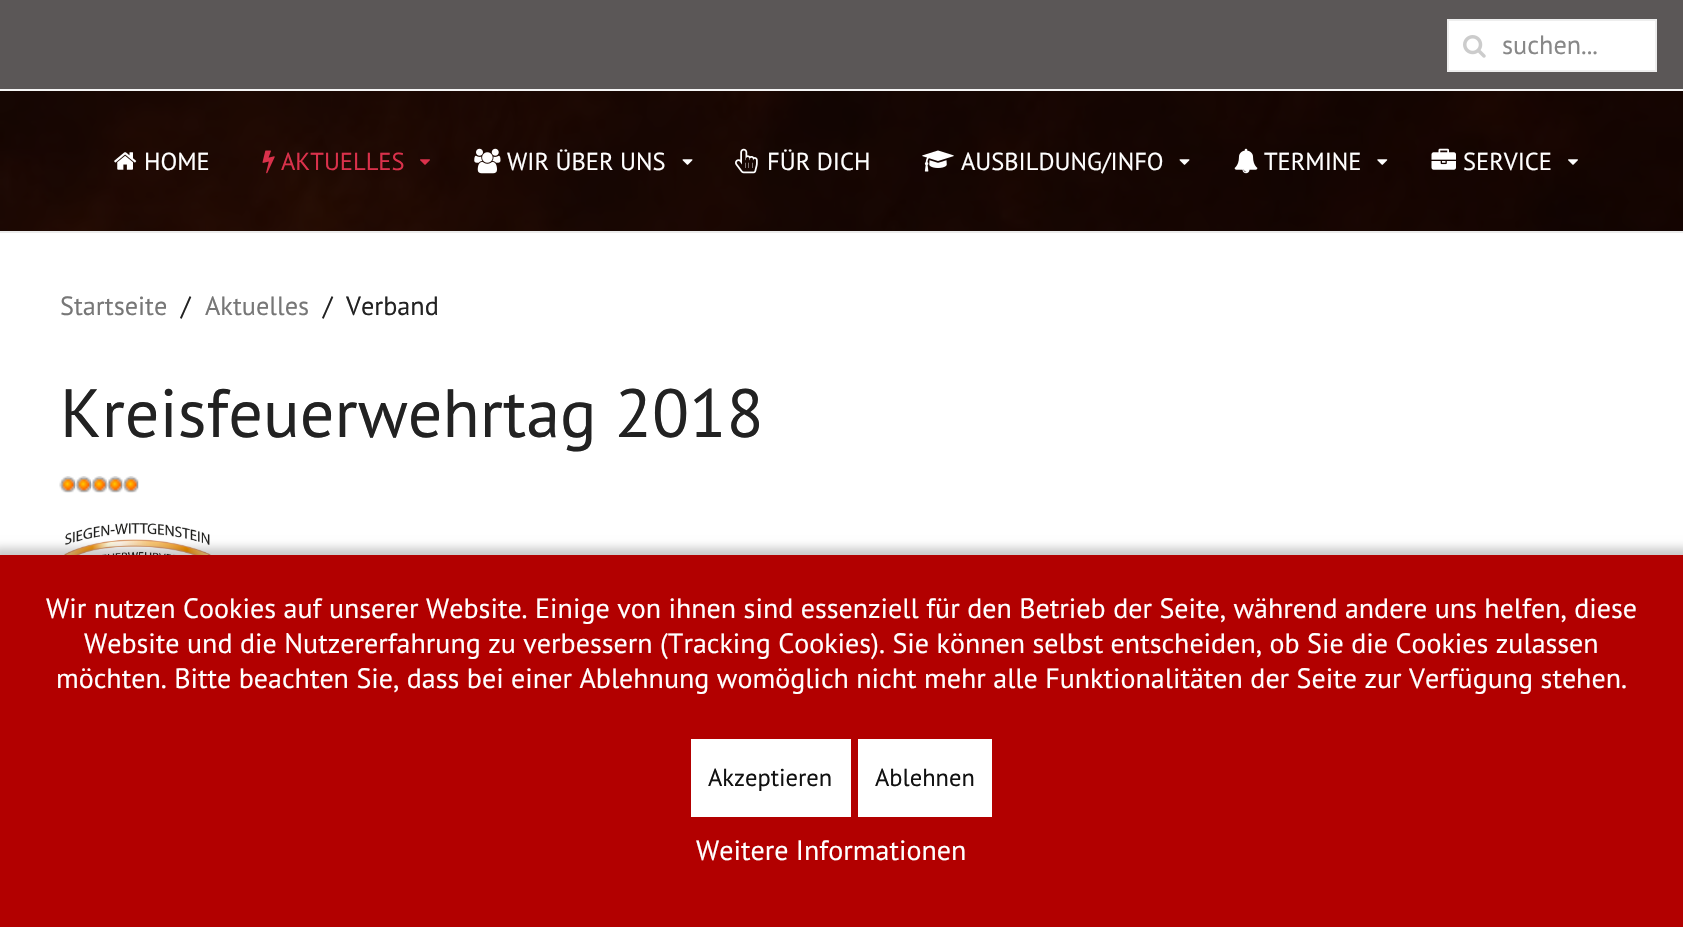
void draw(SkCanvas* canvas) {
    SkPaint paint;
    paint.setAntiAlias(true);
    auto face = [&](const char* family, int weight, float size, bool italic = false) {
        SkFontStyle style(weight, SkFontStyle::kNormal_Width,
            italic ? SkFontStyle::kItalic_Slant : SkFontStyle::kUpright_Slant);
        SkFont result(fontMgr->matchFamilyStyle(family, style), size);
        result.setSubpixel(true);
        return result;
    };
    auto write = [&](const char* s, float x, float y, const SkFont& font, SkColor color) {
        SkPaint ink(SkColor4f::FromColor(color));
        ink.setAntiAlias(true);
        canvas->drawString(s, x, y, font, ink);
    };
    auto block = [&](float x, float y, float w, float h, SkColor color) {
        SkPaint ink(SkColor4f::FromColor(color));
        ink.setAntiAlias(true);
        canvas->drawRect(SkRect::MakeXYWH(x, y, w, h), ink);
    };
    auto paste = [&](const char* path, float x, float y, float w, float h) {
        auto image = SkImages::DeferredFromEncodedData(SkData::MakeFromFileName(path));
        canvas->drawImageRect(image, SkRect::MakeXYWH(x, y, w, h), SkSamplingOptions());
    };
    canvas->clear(SK_ColorWHITE);
    paste("pic1.png", 0, 91, 1683, 140);
    block(0, 0, 1683, 89, SkColorSetRGB(91, 87, 87));
    block(0, 89, 1683, 2, SkColorSetRGB(245, 245, 245));
    paint.setColor(SK_ColorWHITE);
    canvas->drawRect(SkRect::MakeXYWH(1448, 20, 208, 51), paint);
    paint.setStyle(SkPaint::kStroke_Style);
    paint.setStrokeWidth(2);
    paint.setColor(SkColorSetRGB(238, 238, 238));
    canvas->drawRect(SkRect::MakeXYWH(1448, 20, 208, 51), paint);
    paste("pic2.png", 1463, 35, 23, 23);
    auto kFont1 = face("PT Sans", 400, 26.25f);
    write("suchen...", 1502, 54, kFont1, SkColorSetRGB(136, 136, 136));
    paint.setStyle(SkPaint::kFill_Style);
    paint.setColor(SkColorSetRGB(235, 235, 235));
    canvas->drawPath(SkPathBuilder().moveTo(0, 231).lineTo(0, 233).lineTo(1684, 233).lineTo(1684, 93).lineTo(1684, 231).close().detach(), paint);
    block(0, 91, 1683, 140, SkColorSetARGB(217, 0, 0, 0));
    paste("pic3.png", 114, 152, 23, 18);
    auto kFont2 = face("PT Sans", 400, 24.5f);
    write("HOME", 144, 170, kFont2, SK_ColorWHITE);
    paste("pic4.png", 262, 150, 13, 24);
    write("AKTUELLES", 281, 170, kFont2, SkColorSetRGB(218, 49, 75));
    paste("pic5.png", 420, 159, 10, 6);
    paste("pic6.png", 474, 148, 27, 26);
    write("WIR ÜBER UNS", 507, 170, kFont2, SK_ColorWHITE);
    paste("pic7.png", 682, 159, 11, 6);
    paste("pic8.png", 735, 148, 23, 26);
    write("FÜR DICH", 767, 170, kFont2, SK_ColorWHITE);
    paste("pic9.png", 922, 150, 32, 22);
    write("AUSBILDUNG/INFO", 961, 170, kFont2, SK_ColorWHITE);
    paste("pic10.png", 1179, 159, 11, 6);
    paste("pic11.png", 1234, 148, 24, 26);
    write("TERMINE", 1264, 170, kFont2, SK_ColorWHITE);
    paste("pic12.png", 1377, 159, 11, 6);
    paste("pic13.png", 1431, 148, 25, 22);
    write("SERVICE", 1463, 170, kFont2, SK_ColorWHITE);
    paste("pic14.png", 1568, 159, 10, 6);
    write("Startseite", 60, 315, kFont1, SkColorSetRGB(119, 119, 119));
    write("/", 181, 315, kFont1, SkColorSetRGB(34, 34, 34));
    write("Aktuelles", 205, 315, kFont1, SkColorSetRGB(119, 119, 119));
    write("/", 323, 315, kFont1, SkColorSetRGB(34, 34, 34));
    write("Verband", 346, 315, kFont1, SkColorSetRGB(34, 34, 34));
    auto kFont3 = face("PT Sans", 400, 68.25f);
    write("Kreisfeuerwehrtag 2018", 60, 437, kFont3, SkColorSetRGB(34, 34, 34));
    paste("pic15.png", 59, 476, 17, 17);
    paste("pic16.png", 75, 476, 16, 17);
    paste("pic17.png", 91, 476, 16, 17);
    paste("pic18.png", 106, 476, 17, 17);
    paste("pic19.png", 122, 476, 17, 17);
    paste("pic20.png", 59, 523, 158, 32);
    paint.setColor(SkColorSetARGB(54, 0, 0, 0));
    paint.setMaskFilter(SkMaskFilter::MakeBlur(kNormal_SkBlurStyle, 4.5f));
    canvas->drawRect(SkRect::MakeXYWH(-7, 548, 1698, 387), paint);
    paint.setMaskFilter(nullptr);
    block(0, 555, 1683, 372, SkColorSetRGB(178, 0, 0));
    auto kFont4 = face("PT Sans", 400, 28);
    write("Wir nutzen Cookies auf unserer Website. Einige von ihnen sind essenziell für den Betrieb der Seite, während andere uns helfen, diese", 46, 618, kFont4, SK_ColorWHITE);
    write("Website und die Nutzererfahrung zu verbessern (Tracking Cookies). Sie können selbst entscheiden, ob Sie die Cookies zulassen", 84, 653, kFont4, SK_ColorWHITE);
    write("möchten. Bitte beachten Sie, dass bei einer Ablehnung womöglich nicht mehr alle Funktionalitäten der Seite zur Verfügung stehen.", 56, 688, kFont4, SK_ColorWHITE);
    block(691, 739, 160, 78, SK_ColorWHITE);
    write("Akzeptieren", 708, 786, kFont2, SkColorSetRGB(17, 17, 17));
    block(858, 739, 134, 78, SK_ColorWHITE);
    write("Ablehnen", 875, 786, kFont2, SkColorSetRGB(17, 17, 17));
    write("Weitere Informationen", 696, 860, kFont4, SK_ColorWHITE);
}
